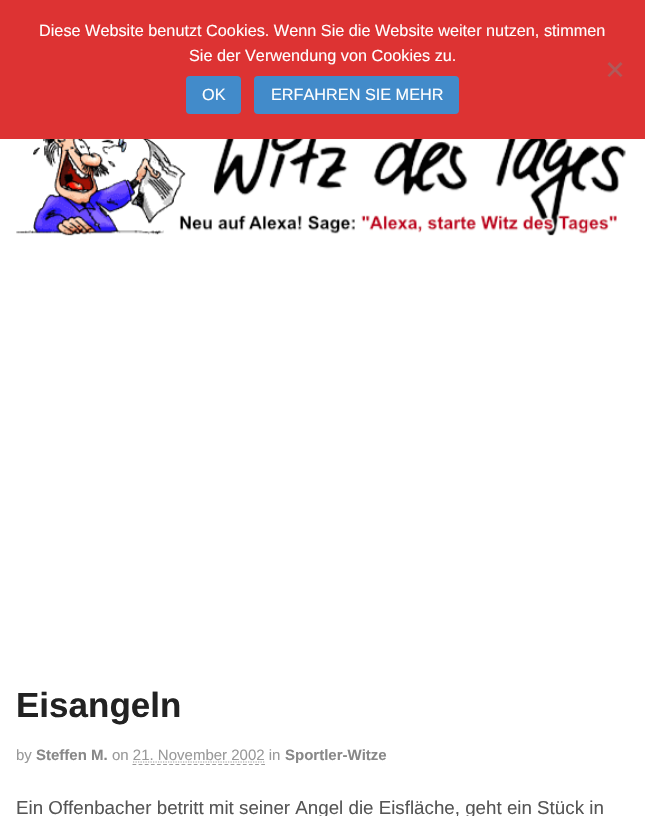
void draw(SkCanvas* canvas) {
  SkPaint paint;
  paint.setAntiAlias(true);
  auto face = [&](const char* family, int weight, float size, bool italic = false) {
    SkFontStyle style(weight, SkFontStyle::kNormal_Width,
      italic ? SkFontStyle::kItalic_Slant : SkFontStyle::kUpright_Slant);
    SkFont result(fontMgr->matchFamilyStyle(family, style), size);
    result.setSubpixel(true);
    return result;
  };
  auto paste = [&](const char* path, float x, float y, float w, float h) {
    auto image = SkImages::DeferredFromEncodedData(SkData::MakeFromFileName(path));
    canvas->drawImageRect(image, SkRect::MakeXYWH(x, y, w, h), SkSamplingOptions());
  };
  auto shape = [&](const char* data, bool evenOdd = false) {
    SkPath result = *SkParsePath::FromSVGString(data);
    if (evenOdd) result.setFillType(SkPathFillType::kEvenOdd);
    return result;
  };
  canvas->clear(0xffffffff);
  paint.setColor(0xffdd3333);
  canvas->drawRect(SkRect::MakeXYWH(0, 0, 645, 139), paint);
  paint.setColor(0xffaf5a5a);
  canvas->drawPath(shape("M620.5 62L622.5 64L609.5 77L607.5 75.5Z"), paint);
  canvas->drawPath(shape("M607.5 64L609.5 62L622.5 75.5L620.5 77Z"), paint);
  paint.setColor(0xff428bca);
  canvas->drawRoundRect(SkRect::MakeXYWH(186, 76, 55, 38), 4, 4, paint);
  canvas->drawRoundRect(SkRect::MakeXYWH(254, 76, 205, 38), 4, 4, paint);
  paste("img/1.png", 16, 139, 610, 97);
  paint.setStroke(true);
  paint.setStrokeWidth(1.2f);
  paint.setColor(0xff999999);
  paint.setPathEffect(SkDashPathEffect::Make({{1.25f, 1.25f}}, 0));
  canvas->drawPath(shape("M133 762H265"), paint);
  paint.setPathEffect(nullptr);
  paint.setPathEffect(SkDashPathEffect::Make({{3.75f, 2.38f}}, 0));
  canvas->drawPath(shape("M132.5 764.5H265"), paint);
  paint.setPathEffect(nullptr);
  auto f0 = face("Liberation Sans", 400, 16.25f);
  paint.setStroke(false);
  paint.setColor(0xffffffff);
  {
    const struct { const char* s; float x, y; } items[] = {
      {"Diese Website benutzt Cookies. Wenn Sie die Website weiter nutzen, stimmen", 39, 36},
      {"Sie der Verwendung von Cookies zu.", 189, 61},
      {"OK", 202, 100},
      {"ERFAHREN SIE MEHR", 271, 100},
    };
    for (auto [s, x, y] : items) {
      canvas->drawString(s, x, y, f0, paint);
    }
  }
  auto f1 = face("Liberation Sans", 700, 35);
  paint.setColor(0xff222222);
  canvas->drawString("Eisangeln", 16, 717, f1, paint);
  auto f2 = face("Liberation Sans", 400, 15);
  paint.setColor(0xff999999);
  canvas->drawString("by", 16, 760, f2, paint);
  auto f3 = face("Liberation Sans", 700, 15);
  paint.setColor(0xff888888);
  canvas->drawString("Steffen M.", 36, 760, f3, paint);
  paint.setColor(0xff999999);
  canvas->drawString("on 21. November 2002 in", 112, 760, f2, paint);
  paint.setColor(0xff888888);
  canvas->drawString("Sportler-Witze", 285, 760, f3, paint);
  auto f4 = face("Liberation Sans", 400, 18.75f);
  paint.setColor(0xff555555);
  canvas->drawString("Ein Offenbacher betritt mit seiner Angel die Eisfläche, geht ein Stück in", 16, 814, f4, paint);
}
